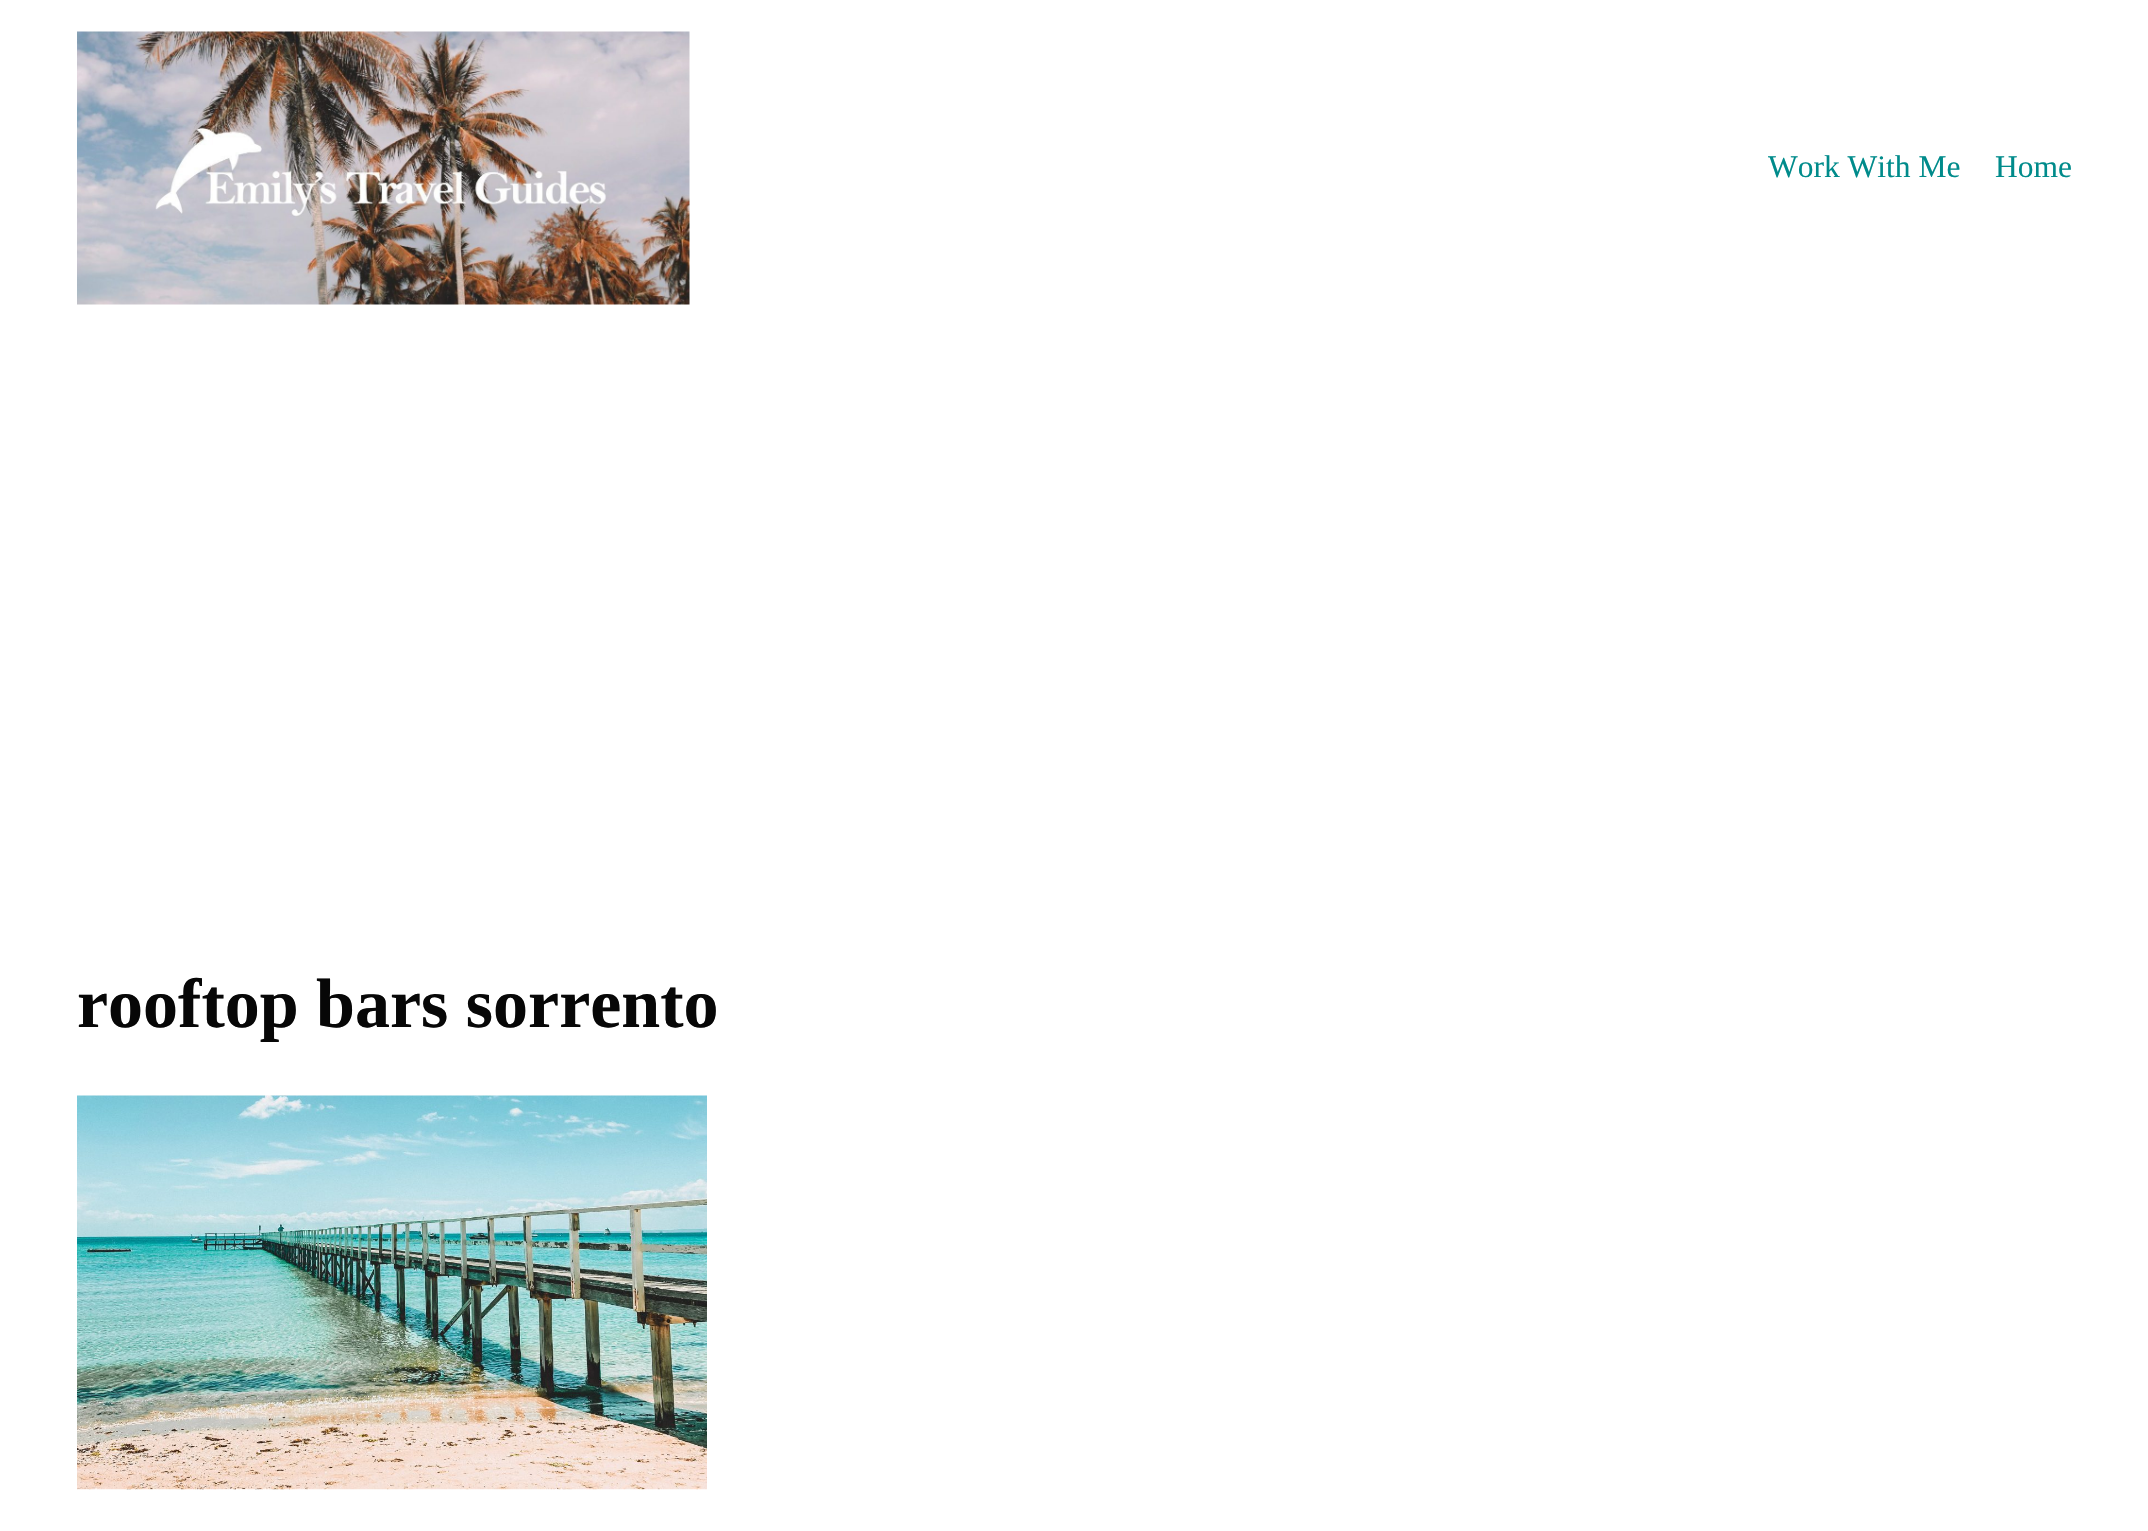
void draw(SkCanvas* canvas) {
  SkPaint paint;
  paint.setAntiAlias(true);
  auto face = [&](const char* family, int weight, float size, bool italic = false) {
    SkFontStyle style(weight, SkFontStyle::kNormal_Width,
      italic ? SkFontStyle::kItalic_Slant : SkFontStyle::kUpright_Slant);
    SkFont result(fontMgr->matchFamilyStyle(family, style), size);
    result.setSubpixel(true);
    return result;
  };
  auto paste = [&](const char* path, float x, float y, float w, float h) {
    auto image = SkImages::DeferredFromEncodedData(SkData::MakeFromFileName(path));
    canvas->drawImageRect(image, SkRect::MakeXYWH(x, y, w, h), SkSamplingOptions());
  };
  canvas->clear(0xffffffff);
  paste("img/1.png", 77, 31, 613, 274);
  paste("img/2.png", 77, 1095, 630, 395);
  auto f0 = face("Liberation Serif", 400, 31.5f);
  paint.setColor(0xff008b8b);
  canvas->drawString("Work With Me", 1768, 177, f0, paint);
  canvas->drawString("Home", 1995, 177, f0, paint);
  auto f1 = face("Liberation Serif", 700, 70);
  paint.setColor(0xff070707);
  canvas->drawString("rooftop bars sorrento", 77, 1027, f1, paint);
}
